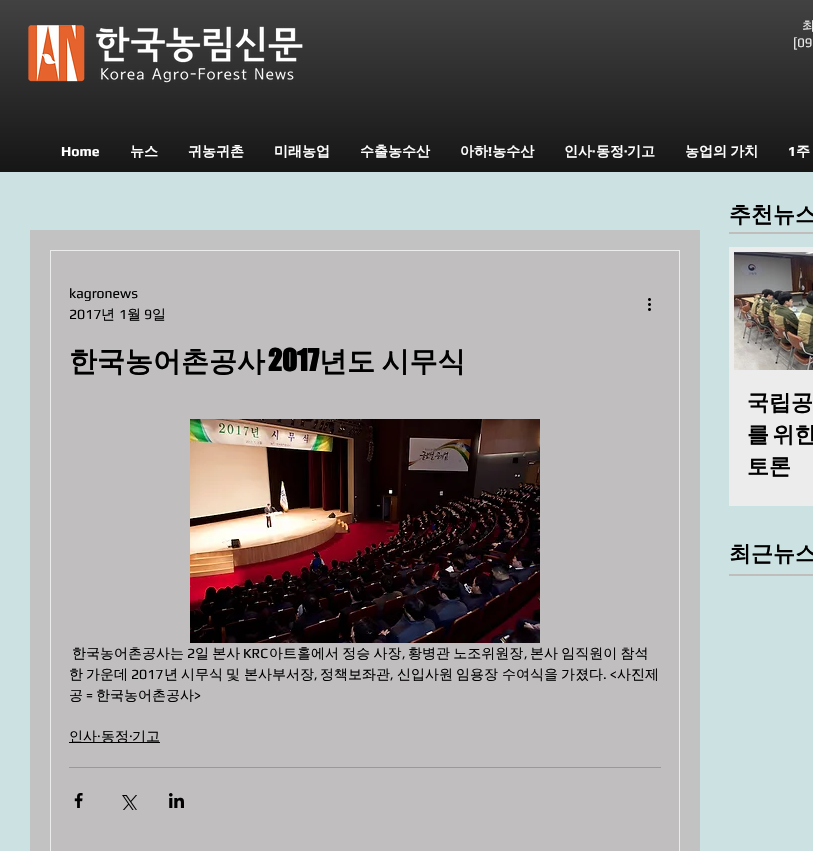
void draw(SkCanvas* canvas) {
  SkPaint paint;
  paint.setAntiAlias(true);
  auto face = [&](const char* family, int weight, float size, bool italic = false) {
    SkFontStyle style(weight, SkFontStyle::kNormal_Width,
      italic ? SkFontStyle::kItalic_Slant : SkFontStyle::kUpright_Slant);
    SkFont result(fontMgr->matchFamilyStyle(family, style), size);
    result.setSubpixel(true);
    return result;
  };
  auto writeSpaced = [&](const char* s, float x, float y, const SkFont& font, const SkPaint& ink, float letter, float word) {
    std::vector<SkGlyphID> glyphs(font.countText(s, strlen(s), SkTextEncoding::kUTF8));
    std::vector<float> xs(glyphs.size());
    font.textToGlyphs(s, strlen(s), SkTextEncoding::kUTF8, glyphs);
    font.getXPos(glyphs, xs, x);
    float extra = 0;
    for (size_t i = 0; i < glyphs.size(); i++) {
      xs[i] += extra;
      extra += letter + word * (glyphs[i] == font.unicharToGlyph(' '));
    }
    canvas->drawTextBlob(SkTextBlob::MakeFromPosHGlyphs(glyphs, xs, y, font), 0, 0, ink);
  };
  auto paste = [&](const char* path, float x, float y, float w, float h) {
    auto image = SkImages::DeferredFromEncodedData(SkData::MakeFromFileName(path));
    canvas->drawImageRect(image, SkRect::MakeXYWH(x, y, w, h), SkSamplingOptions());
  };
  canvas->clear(0xff000000);
  paste("img/1.png", 0, 0, 813, 172);
  paste("img/2.png", 28, 25, 275, 58);
  {
    const struct { float x, y, w, h; SkColor color; } items[] = {
      {0, 172, 813, 679, 0xffcce2e2},
      {729, 232, 84, 2, 0xffc0bdbd},
      {30, 230, 670, 621, 0xffc2c2c2},
    };
    for (auto [x, y, w, h, color] : items) {
      paint.setColor(color);
      canvas->drawRect(SkRect::MakeXYWH(x, y, w, h), paint);
    }
  }
  paint.setColor(0xffc0bebe);
  canvas->drawRect(SkRect::MakeXYWH(50.5f, 250.5f, 629, 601), paint);
  paint.setStroke(true);
  paint.setStrokeWidth(1);
  paint.setColor(0xffececec);
  canvas->drawRect(SkRect::MakeXYWH(50.5f, 250.5f, 629, 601), paint);
  paste("img/3.png", 648, 298, 3, 13);
  paste("img/4.png", 190, 419, 350, 224);
  paint.setStroke(false);
  paint.setColor(0xff000000);
  canvas->drawRect(SkRect::MakeXYWH(69, 742, 91, 1), paint);
  paint.setColor(0xff9a9898);
  canvas->drawRect(SkRect::MakeXYWH(69, 767, 592, 1), paint);
  paste("img/5.png", 74, 793, 9, 15);
  paste("img/6.png", 122, 795, 15, 15);
  paste("img/7.png", 169, 793, 15, 15);
  paint.setColor(0xffececec);
  canvas->drawRect(SkRect::MakeXYWH(729, 247, 84, 259), paint);
  paste("img/8.png", 734, 252, 79, 118);
  paint.setColor(0xffc0bdbd);
  canvas->drawRect(SkRect::MakeXYWH(729, 574, 84, 2), paint);
  auto f0 = face("WenQuanYi Zen Hei", 500, 13);
  paint.setColor(0xffececec);
  canvas->drawString("최", 802, 30, f0, paint);
  auto f1 = face("Play", 400, 13);
  canvas->drawString("[09", 793, 47, f1, paint);
  auto f2 = face("Play", 700, 14);
  paint.setColor(0xffffffff);
  canvas->drawString("Home", 61, 156, f2, paint);
  auto f3 = face("WenQuanYi Zen Hei", 700, 14);
  {
    const struct { const char* s; float x, y; } items[] = {
      {"뉴스", 130, 156},
      {"귀농귀촌", 188, 156},
      {"미래농업", 274, 156},
      {"수출농수산", 360, 156},
      {"아하 농수산", 460, 156},
    };
    for (auto [s, x, y] : items) {
      canvas->drawString(s, x, y, f3, paint);
    }
  }
  canvas->drawString("!", 488, 156, f2, paint);
  canvas->drawString("인사", 564, 156, f3, paint);
  canvas->drawString("·", 592, 156, f2, paint);
  canvas->drawString("동정", 596, 156, f3, paint);
  canvas->drawString("·", 624, 156, f2, paint);
  canvas->drawString("기고", 627, 156, f3, paint);
  writeSpaced("농업의 가치", 685, 156, f3, paint, 0, -1);
  canvas->drawString("1", 788, 156, f2, paint);
  canvas->drawString("주", 796, 156, f3, paint);
  auto f4 = face("WenQuanYi Zen Hei", 700, 22);
  paint.setColor(0xff000000);
  canvas->drawString("추천뉴스", 729, 222, f4, paint);
  auto f5 = face("Play", 400, 14);
  canvas->drawString("kagronews", 69, 298, f5, paint);
  canvas->drawString("2017", 69, 319, f5, paint);
  auto f6 = face("WenQuanYi Zen Hei", 500, 14);
  canvas->drawString("년", 101, 319, f6, paint);
  canvas->drawString("1", 119, 319, f5, paint);
  canvas->drawString("월", 127, 319, f6, paint);
  canvas->drawString("9", 144, 319, f5, paint);
  canvas->drawString("일", 152, 319, f6, paint);
  auto f7 = face("WenQuanYi Zen Hei", 700, 28);
  canvas->drawString("한국농어촌공사", 69, 371, f7, paint);
  auto f8 = face("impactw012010", 700, 28);
  canvas->drawString("2017", 268, 371, f8, paint);
  writeSpaced("년도 시무식", 319, 371, f7, paint, 0, -2);
  canvas->drawString("한국농어촌공사는", 72, 658, f6, paint);
  canvas->drawString("2", 187, 658, f5, paint);
  writeSpaced("일 본사", 195, 658, f6, paint, 0, -1);
  canvas->drawString("KRC", 243, 658, f5, paint);
  writeSpaced("아트홀에서 정승 사장", 269, 658, f6, paint, 0, -1);
  canvas->drawString(",", 402, 658, f5, paint);
  writeSpaced("황병관 노조위원장", 408, 658, f6, paint, 0, -1);
  canvas->drawString(",", 524, 658, f5, paint);
  writeSpaced("본사 임직원이 참석", 530, 658, f6, paint, 0, -1);
  canvas->drawString("한", 69, 679, f6, paint);
  canvas->drawString("가운데", 86, 679, f6, paint);
  canvas->drawString("2017", 131, 679, f5, paint);
  {
    const struct { const char* s; float x, y; } items[] = {
      {"년", 164, 679},
      {"시무식", 181, 679},
      {"및", 226, 679},
      {"본사부서장", 244, 679},
    };
    for (auto [s, x, y] : items) {
      canvas->drawString(s, x, y, f6, paint);
    }
  }
  canvas->drawString(",", 314, 679, f5, paint);
  canvas->drawString("정책보좌관", 320, 679, f6, paint);
  canvas->drawString(",", 390, 679, f5, paint);
  {
    const struct { const char* s; float x, y; } items[] = {
      {"신입사원", 397, 679},
      {"임용장", 456, 679},
      {"수여식을", 502, 679},
      {"가졌다", 561, 679},
    };
    for (auto [s, x, y] : items) {
      canvas->drawString(s, x, y, f6, paint);
    }
  }
  canvas->drawString(". <", 603, 679, f5, paint);
  canvas->drawString("사진제", 617, 679, f6, paint);
  canvas->drawString("공", 69, 700, f6, paint);
  canvas->drawString("=", 86, 700, f5, paint);
  canvas->drawString("한국농어촌공사", 96, 700, f6, paint);
  canvas->drawString(">", 194, 700, f5, paint);
  canvas->drawString("인사", 69, 741, f6, paint);
  canvas->drawString("·", 97, 741, f5, paint);
  canvas->drawString("동정", 101, 741, f6, paint);
  canvas->drawString("·", 129, 741, f5, paint);
  canvas->drawString("기고", 132, 741, f6, paint);
  writeSpaced("국립공", 747, 410, f4, paint, 0, -3);
  writeSpaced("를 위한", 747, 442, f4, paint, 0, -3);
  canvas->drawString("토론", 747, 474, f4, paint);
  canvas->drawString("최근뉴스", 729, 561, f4, paint);
}
